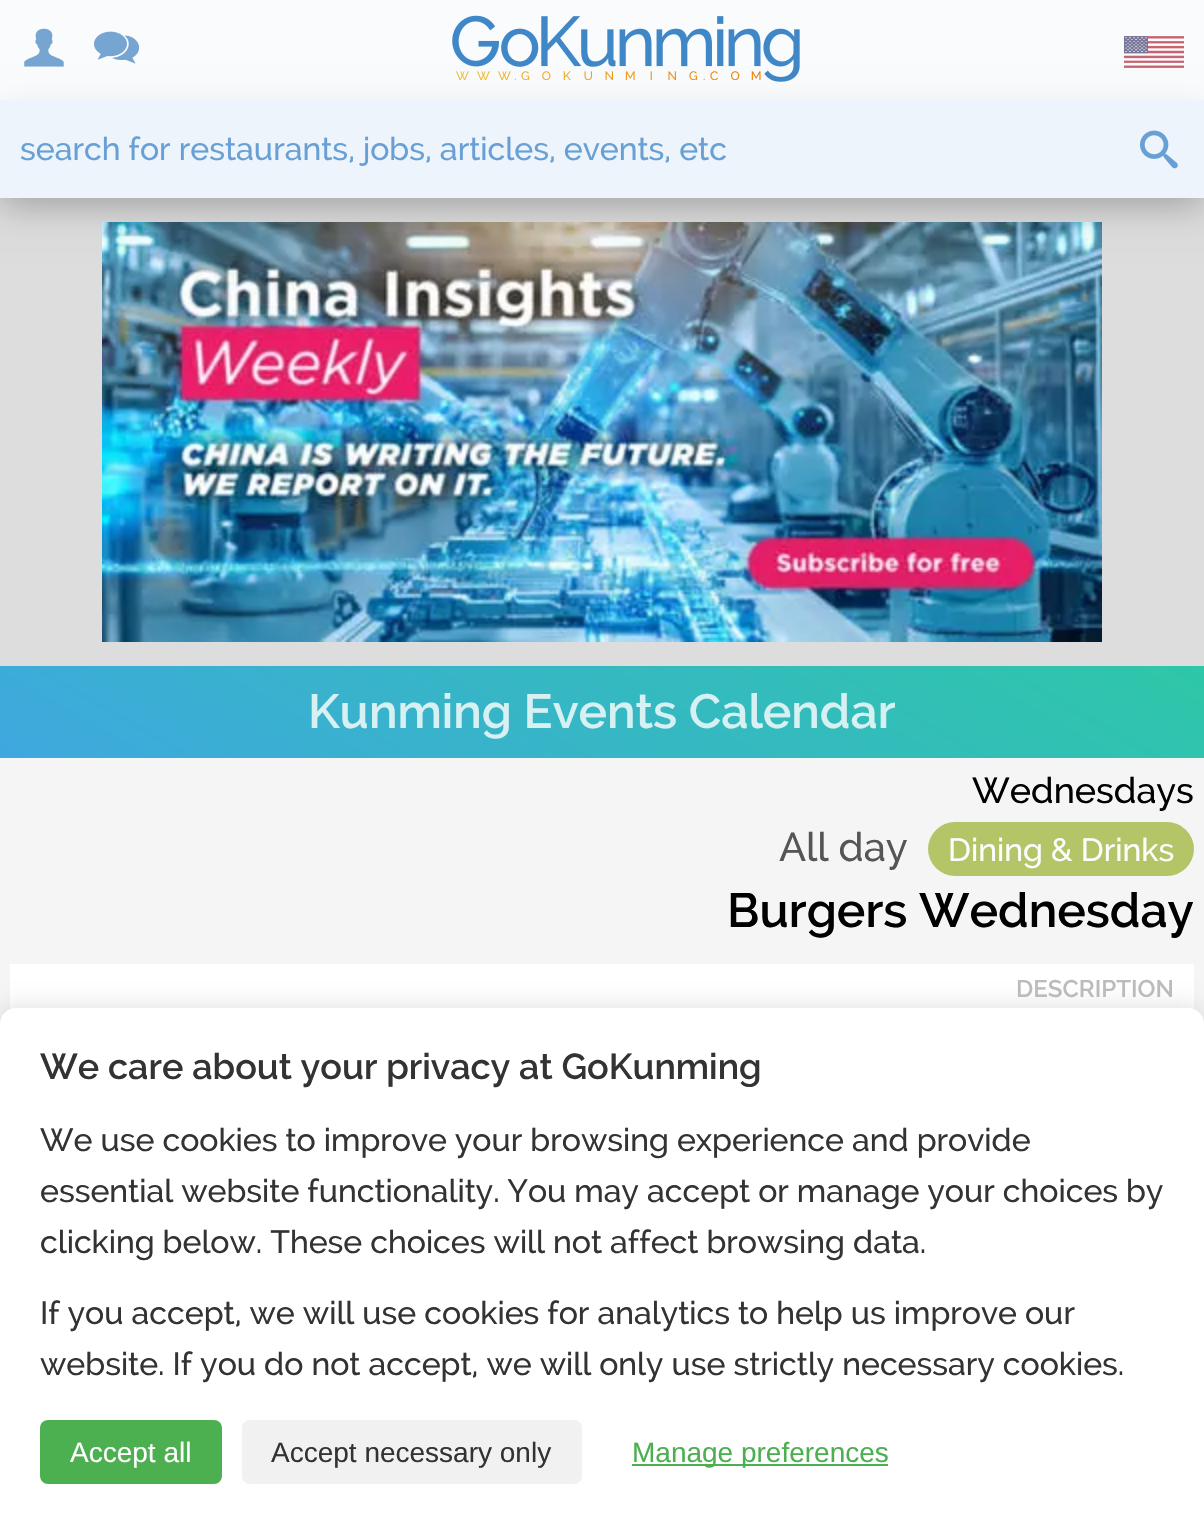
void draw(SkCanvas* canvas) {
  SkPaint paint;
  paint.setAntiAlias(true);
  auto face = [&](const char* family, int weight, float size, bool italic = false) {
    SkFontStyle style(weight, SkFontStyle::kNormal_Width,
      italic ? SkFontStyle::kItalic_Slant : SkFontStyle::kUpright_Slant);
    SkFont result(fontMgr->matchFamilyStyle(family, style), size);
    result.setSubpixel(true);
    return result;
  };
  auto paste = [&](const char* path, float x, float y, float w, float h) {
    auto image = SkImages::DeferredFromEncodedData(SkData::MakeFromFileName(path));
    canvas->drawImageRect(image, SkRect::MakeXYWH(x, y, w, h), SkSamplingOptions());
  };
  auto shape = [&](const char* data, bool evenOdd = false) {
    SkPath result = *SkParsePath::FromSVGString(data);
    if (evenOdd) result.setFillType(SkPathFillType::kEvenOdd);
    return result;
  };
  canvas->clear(0xffdddddd);
  paste("img/6.png", 102, 222, 1000, 420);
  paint.setColor(0x33000000);
  paint.setMaskFilter(SkMaskFilter::MakeBlur(kNormal_SkBlurStyle, 20));
  canvas->drawRect(SkRect::MakeXYWH(0, 4, 1204, 198), paint);
  paint.setMaskFilter(nullptr);
  paint.setColor(0xfffafbfd);
  canvas->drawRect(SkRect::MakeXYWH(0, 0, 1204, 100), paint);
  paste("img/3.png", 452, 15, 348, 67);
  paint.setColor(0x1a000000);
  paint.setMaskFilter(SkMaskFilter::MakeBlur(kNormal_SkBlurStyle, 15));
  canvas->drawRect(SkRect::MakeXYWH(0, 110, 1204, 98), paint);
  paint.setMaskFilter(nullptr);
  paste("img/1.png", 24, 28, 40, 39);
  paste("img/2.png", 94, 31, 46, 33);
  paste("img/4.png", 1124, 36, 60, 32);
  paint.setColor(0xffedf4fc);
  canvas->drawRect(SkRect::MakeXYWH(0, 100, 1204, 98), paint);
  paste("img/5.png", 1140, 130, 38, 39);
  paint.setColor(0xfff5f5f5);
  canvas->drawRect(SkRect::MakeXYWH(0, 758, 1204, 266), paint);
  {
    const SkColor colors[] = {0xff3ea8df, 0xff2ec7a8};
    const float stops[] = {0, 1};
    const SkPoint ends[] = {{432, 1007}, {772, 417}};
    paint.setShader(SkGradientShader::MakeLinear(ends, colors, stops, 2, SkTileMode::kClamp));
    paint.setAlpha(255);
  }
  canvas->drawRect(SkRect::MakeXYWH(0, 666, 1204, 92), paint);
  paint.setShader(nullptr);
  paint.setColor(0xffb4c567);
  canvas->drawRoundRect(SkRect::MakeXYWH(928, 822, 266, 54), 27, 27, paint);
  paint.setColor(0xffffffff);
  canvas->drawRect(SkRect::MakeXYWH(10, 964, 1184, 46), paint);
  paint.setColor(0x1a000000);
  paint.setMaskFilter(SkMaskFilter::MakeBlur(kNormal_SkBlurStyle, 10));
  canvas->drawRoundRect(SkRect::MakeXYWH(0, 1004, 1204, 516), 16, 16, paint);
  paint.setMaskFilter(nullptr);
  paint.setColor(0xffffffff);
  canvas->drawPath(shape("M16 1008H1188C1197 1008 1204 1015 1204 1024V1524H0V1024C0 1015 7 1008 16 1008Z"), paint);
  paint.setColor(0xff4caf50);
  canvas->drawRoundRect(SkRect::MakeXYWH(40, 1420, 182, 64), 8, 8, paint);
  paint.setColor(0xfff1f1f1);
  canvas->drawRoundRect(SkRect::MakeXYWH(242, 1420, 340, 64), 8, 8, paint);
  paint.setColor(0xff4caf50);
  canvas->drawRect(SkRect::MakeXYWH(632, 1464, 256, 2), paint);
  auto f0 = face("Raleway", 500, 32);
  paint.setColor(0xff68a0d5);
  canvas->drawString("search for restaurants, jobs, articles, events, etc", 20, 160, f0, paint);
  auto f1 = face("Raleway", 600, 48);
  paint.setColor(0xffd7f1f3);
  canvas->drawString("Kunming Events Calendar", 308, 728, f1, paint);
  auto f2 = face("Raleway", 500, 36);
  paint.setColor(0xff000000);
  canvas->drawString("Wednesdays", 972, 803, f2, paint);
  auto f3 = face("Raleway", 500, 40);
  paint.setColor(0xff565555);
  canvas->drawString("All day", 779, 861, f3, paint);
  paint.setColor(0xfffdfdfd);
  canvas->drawString("Dining & Drinks", 948, 861, f0, paint);
  paint.setColor(0xff000000);
  canvas->drawString("Burgers Wednesday", 727, 927, f1, paint);
  auto f4 = face("Raleway", 600, 24);
  paint.setColor(0xffbbbbbb);
  canvas->drawString("DESCRIPTION", 1016, 997, f4, paint);
  auto f5 = face("Raleway", 600, 36);
  paint.setColor(0xff333333);
  canvas->drawString("We care about your privacy at GoKunming", 40, 1079, f5, paint);
  {
    const struct { const char* s; float x, y; } items[] = {
      {"We use cookies to improve your browsing experience and provide", 40, 1151},
      {"essential website functionality. You may accept or manage your choices by", 40, 1202},
      {"clicking below. These choices will not affect browsing data.", 40, 1253},
      {"If you accept, we will use cookies for analytics to help us improve our", 40, 1324},
      {"website. If you do not accept, we will only use strictly necessary cookies.", 40, 1375},
    };
    for (auto [s, x, y] : items) {
      canvas->drawString(s, x, y, f0, paint);
    }
  }
  auto f6 = face("Liberation Sans", 400, 28);
  paint.setColor(0xfffdfdfd);
  canvas->drawString("Accept all", 70, 1462, f6, paint);
  paint.setColor(0xff333333);
  canvas->drawString("Accept necessary only", 271, 1462, f6, paint);
  paint.setColor(0xff4caf50);
  canvas->drawString("Manage preferences", 632, 1462, f6, paint);
}
